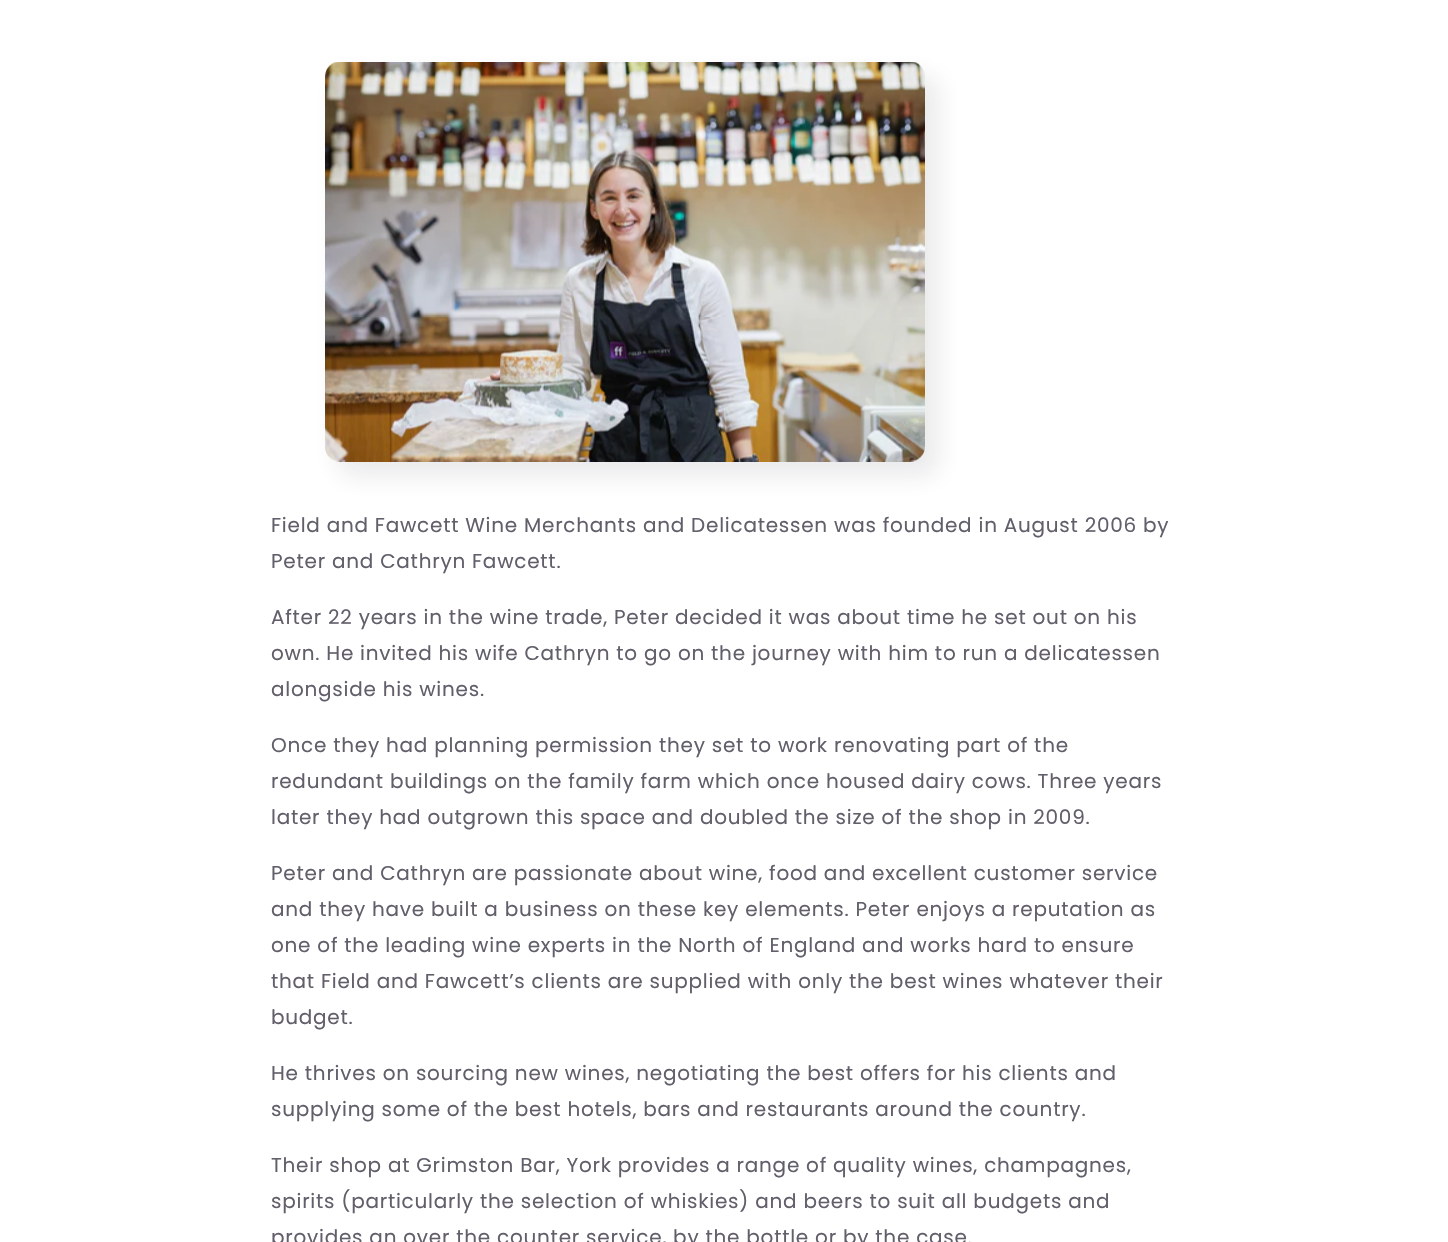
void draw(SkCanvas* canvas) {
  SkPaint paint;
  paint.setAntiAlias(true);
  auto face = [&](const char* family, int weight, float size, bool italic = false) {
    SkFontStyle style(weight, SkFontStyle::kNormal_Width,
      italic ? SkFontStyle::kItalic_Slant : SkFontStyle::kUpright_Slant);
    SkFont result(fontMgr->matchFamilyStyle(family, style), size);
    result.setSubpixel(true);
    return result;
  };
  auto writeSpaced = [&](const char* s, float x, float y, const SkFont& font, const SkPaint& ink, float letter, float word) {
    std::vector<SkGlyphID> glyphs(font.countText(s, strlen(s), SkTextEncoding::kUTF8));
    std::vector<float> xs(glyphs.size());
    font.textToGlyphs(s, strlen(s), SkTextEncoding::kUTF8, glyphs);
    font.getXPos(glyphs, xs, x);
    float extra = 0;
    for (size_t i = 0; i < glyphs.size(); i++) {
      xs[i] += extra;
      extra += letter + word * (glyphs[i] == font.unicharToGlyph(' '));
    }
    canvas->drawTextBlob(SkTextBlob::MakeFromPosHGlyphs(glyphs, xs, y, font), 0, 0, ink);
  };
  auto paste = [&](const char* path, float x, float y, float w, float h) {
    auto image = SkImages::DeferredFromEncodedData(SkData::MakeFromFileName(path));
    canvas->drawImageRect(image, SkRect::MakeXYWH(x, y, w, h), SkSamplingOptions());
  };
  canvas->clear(0xffffffff);
  paint.setColor(0x1a2e2a39);
  paint.setMaskFilter(SkMaskFilter::MakeBlur(kNormal_SkBlurStyle, 12.5f));
  canvas->drawRoundRect(SkRect::MakeXYWH(338, 76, 600, 400), 15, 15, paint);
  paint.setMaskFilter(nullptr);
  paste("img/1.png", 325, 62, 600, 400);
  auto f0 = face("Poppins", 400, 20);
  paint.setColor(0xff625f6b);
  {
    const struct { const char* s; float x, y; } items[] = {
      {"Field and Fawcett Wine Merchants and Delicatessen was founded in August 2006 by", 271, 532},
      {"Peter and Cathryn Fawcett.", 271, 568},
      {"After 22 years in the wine trade, Peter decided it was about time he set out on his", 271, 624},
      {"own. He invited his wife Cathryn to go on the journey with him to run a delicatessen", 271, 660},
      {"alongside his wines.", 271, 696},
      {"Once they had planning permission they set to work renovating part of the", 271, 752},
      {"redundant buildings on the family farm which once housed dairy cows. Three years", 271, 788},
      {"later they had outgrown this space and doubled the size of the shop in 2009.", 271, 824},
      {"Peter and Cathryn are passionate about wine, food and excellent customer service", 271, 880},
      {"and they have built a business on these key elements. Peter enjoys a reputation as", 271, 916},
      {"one of the leading wine experts in the North of England and works hard to ensure", 271, 952},
      {"that Field and Fawcett’s clients are supplied with only the best wines whatever their", 271, 988},
      {"budget.", 271, 1024},
      {"He thrives on sourcing new wines, negotiating the best offers for his clients and", 271, 1080},
      {"supplying some of the best hotels, bars and restaurants around the country.", 271, 1116},
      {"Their shop at Grimston Bar, York provides a range of quality wines, champagnes,", 271, 1172},
      {"spirits (particularly the selection of whiskies) and beers to suit all budgets and", 271, 1208},
      {"provides an over the counter service, by the bottle or by the case.", 271, 1244},
    };
    for (auto [s, x, y] : items) {
      writeSpaced(s, x, y, f0, paint, 0.75f, 0);
    }
  }
}
